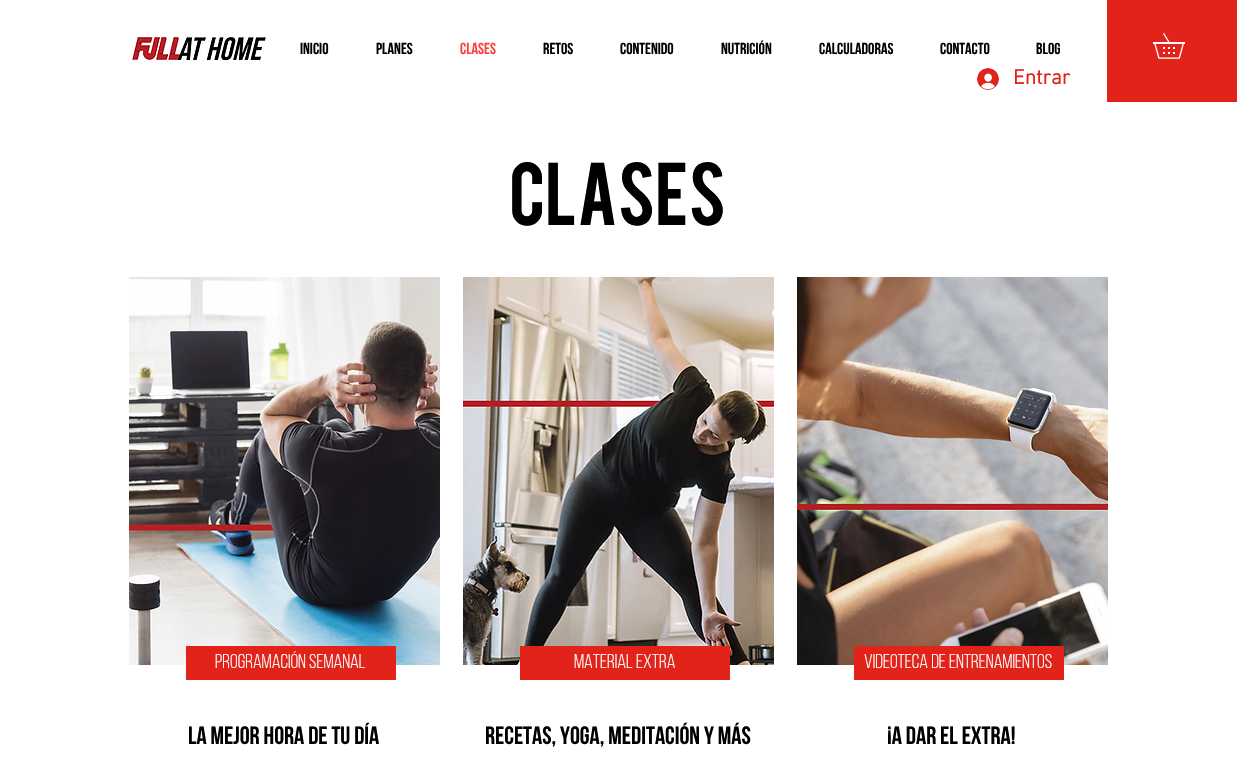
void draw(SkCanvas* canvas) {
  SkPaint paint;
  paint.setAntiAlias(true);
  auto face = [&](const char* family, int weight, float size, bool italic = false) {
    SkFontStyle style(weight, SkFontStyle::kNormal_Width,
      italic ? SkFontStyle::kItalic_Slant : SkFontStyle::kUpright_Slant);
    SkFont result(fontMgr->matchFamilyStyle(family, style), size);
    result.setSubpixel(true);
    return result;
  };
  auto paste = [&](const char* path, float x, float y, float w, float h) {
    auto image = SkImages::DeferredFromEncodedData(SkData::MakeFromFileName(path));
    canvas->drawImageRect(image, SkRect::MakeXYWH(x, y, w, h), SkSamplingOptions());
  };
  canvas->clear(0xffffffff);
  paste("img/1.png", 132, 37, 134, 24);
  paint.setColor(0xffe2231a);
  canvas->drawRect(SkRect::MakeXYWH(1107, 0, 130, 102), paint);
  paste("img/2.png", 1153, 33, 32, 26);
  paste("img/3.png", 977, 68, 22, 22);
  paste("img/4.png", 129, 277, 311, 388);
  canvas->drawRect(SkRect::MakeXYWH(186, 646, 210, 34), paint);
  paste("img/5.png", 463, 277, 311, 388);
  canvas->drawRect(SkRect::MakeXYWH(520, 646, 210, 34), paint);
  paste("img/6.png", 797, 277, 311, 388);
  canvas->drawRect(SkRect::MakeXYWH(854, 646, 210, 34), paint);
  auto f0 = face("Bebas Neue", 700, 16);
  paint.setColor(0xff000000);
  canvas->drawString("Inicio", 300, 54, f0, paint);
  canvas->drawString("Planes", 376, 54, f0, paint);
  paint.setColor(0xffff4040);
  canvas->drawString("Clases", 460, 54, f0, paint);
  paint.setColor(0xff000000);
  {
    const struct { const char* s; float x, y; } items[] = {
      {"RETOS", 543, 54},
      {"Contenido", 620, 54},
      {"Nutrición", 721, 54},
      {"Calculadoras", 819, 54},
      {"Contacto", 940, 54},
      {"Blog", 1036, 54},
    };
    for (auto [s, x, y] : items) {
      canvas->drawString(s, x, y, f0, paint);
    }
  }
  auto f1 = face("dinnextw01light", 700, 21);
  paint.setColor(0xffe2231a);
  canvas->drawString("Entrar", 1013, 84, f1, paint);
  auto f2 = face("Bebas", 400, 70);
  paint.setColor(0xff000000);
  canvas->drawString("Clases", 509, 225, f2, paint);
  auto f3 = face("Bebas Neue", 400, 20);
  paint.setColor(0xffffffff);
  canvas->drawString("Programación Semanal", 215, 668, f3, paint);
  auto f4 = face("Bebas Neue", 700, 25);
  paint.setColor(0xff000000);
  canvas->drawString("La mejor hora de tu día", 188, 744, f4, paint);
  paint.setColor(0xffffffff);
  canvas->drawString("Material Extra", 574, 668, f3, paint);
  paint.setColor(0xff000000);
  canvas->drawString("Recetas, yoga, meditación y más", 485, 744, f4, paint);
  paint.setColor(0xffffffff);
  canvas->drawString("Videoteca de Entrenamientos", 864, 668, f3, paint);
  paint.setColor(0xff000000);
  canvas->drawString("¡a dar el extra!", 887, 744, f4, paint);
}
